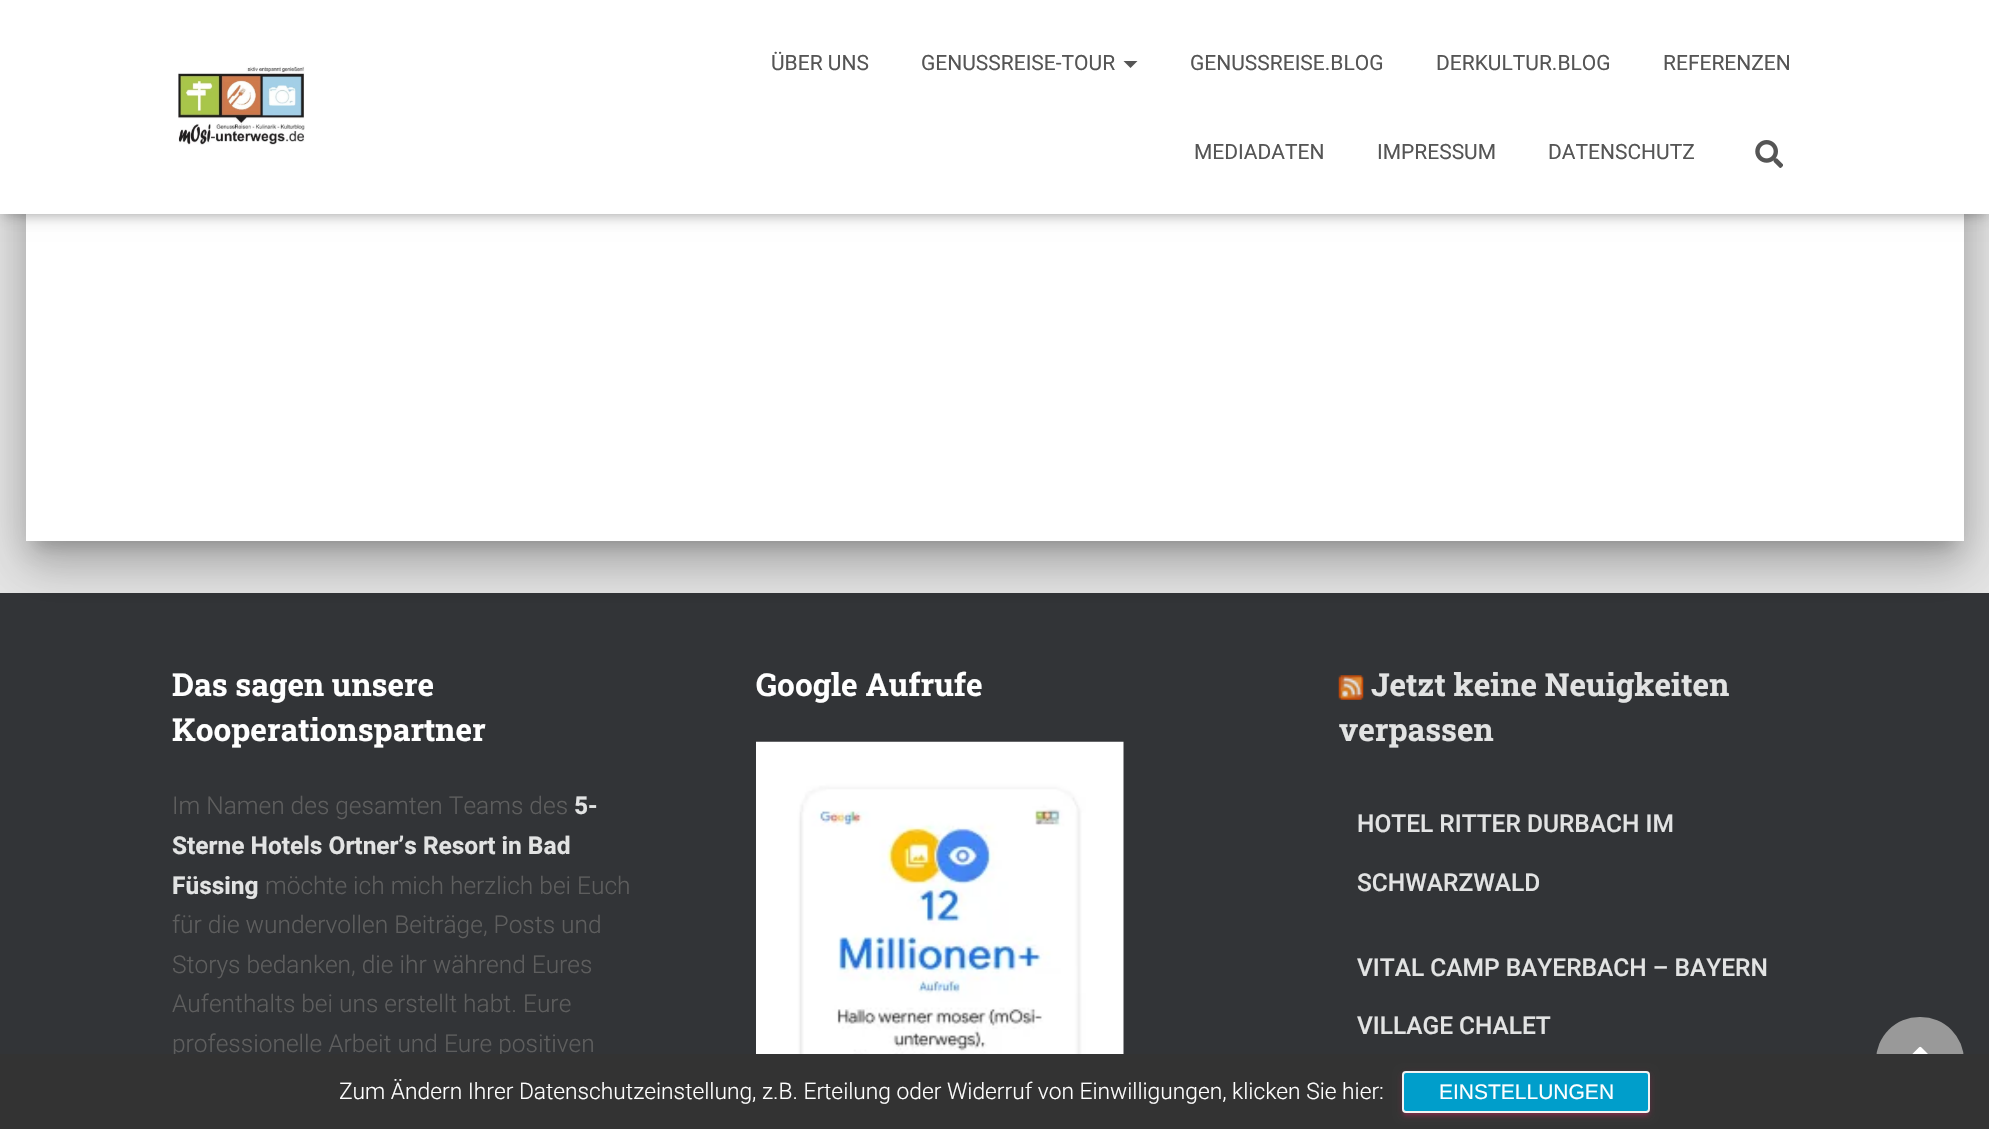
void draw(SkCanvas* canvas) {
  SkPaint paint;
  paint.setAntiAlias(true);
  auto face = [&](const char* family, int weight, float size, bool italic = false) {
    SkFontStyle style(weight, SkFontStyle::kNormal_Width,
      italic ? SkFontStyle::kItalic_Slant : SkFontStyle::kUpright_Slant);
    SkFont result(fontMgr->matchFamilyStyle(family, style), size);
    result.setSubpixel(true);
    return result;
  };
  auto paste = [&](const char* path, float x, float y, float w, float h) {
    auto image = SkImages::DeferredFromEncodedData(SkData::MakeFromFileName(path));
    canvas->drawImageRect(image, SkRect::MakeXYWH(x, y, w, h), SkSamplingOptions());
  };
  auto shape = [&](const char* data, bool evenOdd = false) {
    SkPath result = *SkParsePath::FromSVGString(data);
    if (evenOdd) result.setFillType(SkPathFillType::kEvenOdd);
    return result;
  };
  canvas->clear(0xffe5e5e5);
  paint.setColor(0x33000000);
  paint.setMaskFilter(SkMaskFilter::MakeBlur(kNormal_SkBlurStyle, 9));
  canvas->drawRoundRect(SkRect::MakeXYWH(35, -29, 1920, 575), 2, 2, paint);
  paint.setMaskFilter(nullptr);
  paint.setColor(0xff323437);
  canvas->drawRect(SkRect::MakeXYWH(0, 593, 1989, 461), paint);
  paint.setColor(0x1f000000);
  paint.setMaskFilter(SkMaskFilter::MakeBlur(kNormal_SkBlurStyle, 26));
  canvas->drawRoundRect(SkRect::MakeXYWH(18, -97, 1954, 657), 19, 19, paint);
  paint.setMaskFilter(nullptr);
  paint.setColor(0x24000000);
  paint.setMaskFilter(SkMaskFilter::MakeBlur(kNormal_SkBlurStyle, 21));
  canvas->drawRoundRect(SkRect::MakeXYWH(23, -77, 1944, 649), 14, 14, paint);
  paint.setMaskFilter(nullptr);
  paint.setColor(0xffffffff);
  canvas->drawRect(SkRect::MakeXYWH(26, 214, 1938, 327), paint);
  paint.setColor(0x1a000000);
  paint.setMaskFilter(SkMaskFilter::MakeBlur(kNormal_SkBlurStyle, 4.5f));
  canvas->drawRect(SkRect::MakeXYWH(4, 11, 1982, 206), paint);
  paint.setMaskFilter(nullptr);
  paint.setColor(0x1f000000);
  paint.setMaskFilter(SkMaskFilter::MakeBlur(kNormal_SkBlurStyle, 9));
  canvas->drawRect(SkRect::MakeXYWH(0, 2, 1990, 213), paint);
  paint.setMaskFilter(nullptr);
  paint.setColor(0x6b000000);
  paint.setMaskFilter(SkMaskFilter::MakeBlur(kNormal_SkBlurStyle, 9));
  canvas->drawRect(SkRect::MakeXYWH(11, 12, 1968, 193), paint);
  paint.setMaskFilter(nullptr);
  paint.setColor(0xffffffff);
  canvas->drawRect(SkRect::MakeXYWH(0, 0, 1989, 214), paint);
  paste("img/1.png", 178, 66, 127, 79);
  paint.setColor(0xff555555);
  canvas->drawPath(shape("M1123.5 61H1137.5L1130.5 68Z"), paint);
  paste("img/2.png", 1755, 140, 28, 28);
  paste("img/3.png", 756, 741, 368, 313);
  paste("img/4.png", 1338, 675, 26, 25);
  paint.setColor(0xff999999);
  canvas->drawRoundRect(SkRect::MakeXYWH(1876, 1017, 88, 87), 43.5f, 43.5f, paint);
  paste("img/5.png", 1912, 1046, 16, 8);
  auto f0 = face("Roboto", 400, 21);
  paint.setColor(0xff555555);
  {
    const struct { const char* s; float x, y; } items[] = {
      {"ÜBER UNS", 771, 70},
      {"GENUSSREISE-TOUR", 921, 70},
      {"GENUSSREISE.BLOG", 1190, 70},
      {"DERKULTUR.BLOG", 1436, 70},
      {"REFERENZEN", 1663, 70},
      {"MEDIADATEN", 1194, 159},
      {"IMPRESSUM", 1377, 159},
      {"DATENSCHUTZ", 1548, 159},
    };
    for (auto [s, x, y] : items) {
      canvas->drawString(s, x, y, f0, paint);
    }
  }
  auto f1 = face("Roboto Slab", 700, 31.5f);
  paint.setColor(0xffffffff);
  canvas->drawString("Das sagen unsere", 172, 696, f1, paint);
  canvas->drawString("Kooperationspartner", 172, 741, f1, paint);
  auto f2 = face("Roboto", 300, 24.5f);
  paint.setColor(0xff5e5e5e);
  canvas->drawString("Im Namen des gesamten Teams des", 172, 814, f2, paint);
  auto f3 = face("Roboto", 700, 24.5f);
  paint.setColor(0xffe2e3e3);
  {
    const struct { const char* s; float x, y; } items[] = {
      {"5-", 574, 814},
      {"Sterne Hotels Ortner’s Resort in Bad", 172, 854},
      {"Füssing", 172, 894},
    };
    for (auto [s, x, y] : items) {
      canvas->drawString(s, x, y, f3, paint);
    }
  }
  paint.setColor(0xff5e5e5e);
  {
    const struct { const char* s; float x, y; } items[] = {
      {"möchte ich mich herzlich bei Euch", 265, 894},
      {"für die wundervollen Beiträge, Posts und", 172, 933},
      {"Storys bedanken, die ihr während Eures", 172, 973},
      {"Aufenthalts bei uns erstellt habt. Eure", 172, 1012},
      {"professionelle Arbeit und Eure positiven", 172, 1052},
    };
    for (auto [s, x, y] : items) {
      canvas->drawString(s, x, y, f2, paint);
    }
  }
  paint.setColor(0xffffffff);
  canvas->drawString("Google Aufrufe", 756, 696, f1, paint);
  paint.setColor(0xffe2e3e3);
  canvas->drawString("Jetzt keine Neuigkeiten", 1371, 696, f1, paint);
  canvas->drawString("verpassen", 1339, 741, f1, paint);
  auto f4 = face("Roboto", 500, 24.5f);
  {
    const struct { const char* s; float x, y; } items[] = {
      {"HOTEL RITTER DURBACH IM", 1357, 832},
      {"SCHWARZWALD", 1357, 891},
      {"VITAL CAMP BAYERBACH – BAYERN", 1357, 976},
      {"VILLAGE CHALET", 1357, 1034},
    };
    for (auto [s, x, y] : items) {
      canvas->drawString(s, x, y, f4, paint);
    }
  }
  paint.setColor(0xff333333);
  canvas->drawRect(SkRect::MakeXYWH(0, 1054, 1989, 75), paint);
  auto f5 = face("Roboto", 300, 22.75f);
  paint.setColor(0xffffffff);
  canvas->drawString("Zum Ändern Ihrer Datenschutzeinstellung, z.B. Erteilung oder Widerruf von Einwilligungen, klicken Sie hier:", 339, 1099, f5, paint);
  paint.setColor(0x1fe91e63);
  paint.setMaskFilter(SkMaskFilter::MakeBlur(kNormal_SkBlurStyle, 4.5f));
  canvas->drawRoundRect(SkRect::MakeXYWH(1402, 1073, 248, 42), 4, 4, paint);
  paint.setMaskFilter(nullptr);
  paint.setColor(0x33e91e63);
  paint.setMaskFilter(SkMaskFilter::MakeBlur(kNormal_SkBlurStyle, 1));
  canvas->drawRect(SkRect::MakeXYWH(1405, 1080, 242, 35), paint);
  paint.setMaskFilter(nullptr);
  paint.setColor(0x24e91e63);
  paint.setMaskFilter(SkMaskFilter::MakeBlur(kNormal_SkBlurStyle, 2));
  canvas->drawRoundRect(SkRect::MakeXYWH(1402, 1075, 248, 42), 4, 4, paint);
  paint.setMaskFilter(nullptr);
  paint.setColor(0xff009ecb);
  canvas->drawRoundRect(SkRect::MakeXYWH(1403, 1072, 246, 40), 3, 3, paint);
  paint.setStroke(true);
  paint.setStrokeWidth(2);
  paint.setColor(0xfff3f3f3);
  canvas->drawRoundRect(SkRect::MakeXYWH(1403, 1072, 246, 40), 3, 3, paint);
  auto f6 = face("Liberation Sans", 400, 21);
  paint.setStroke(false);
  paint.setColor(0xffffffff);
  canvas->drawString("EINSTELLUNGEN", 1439, 1099, f6, paint);
}
